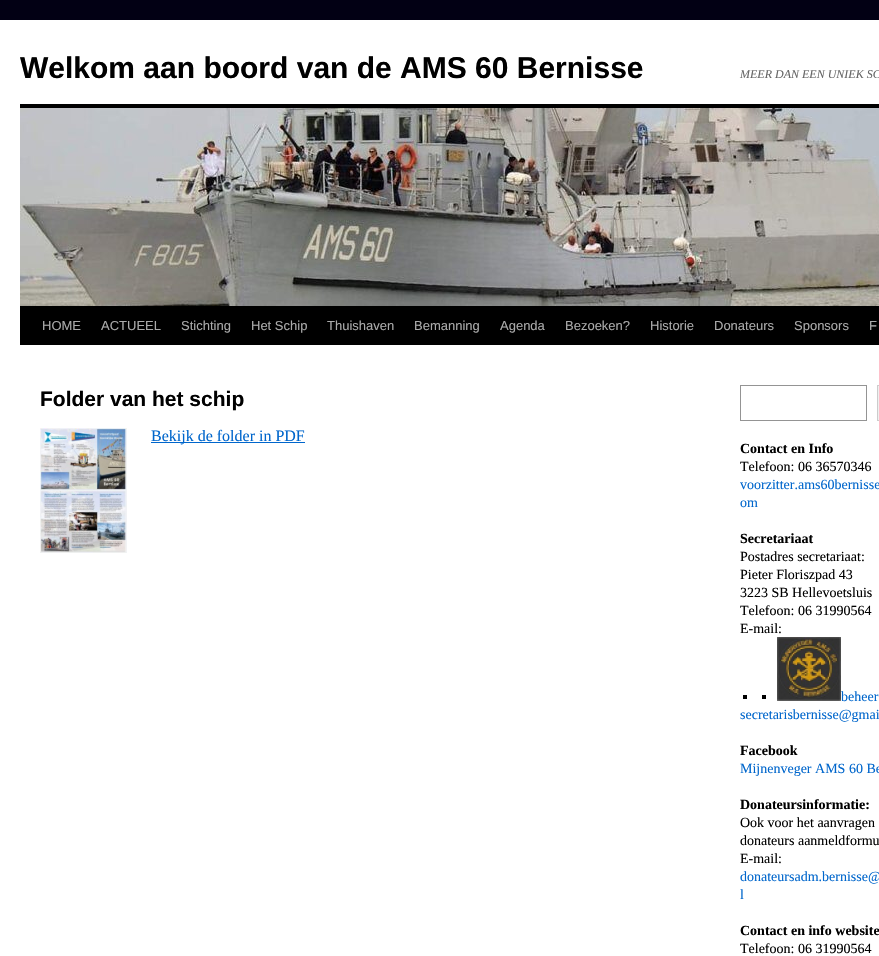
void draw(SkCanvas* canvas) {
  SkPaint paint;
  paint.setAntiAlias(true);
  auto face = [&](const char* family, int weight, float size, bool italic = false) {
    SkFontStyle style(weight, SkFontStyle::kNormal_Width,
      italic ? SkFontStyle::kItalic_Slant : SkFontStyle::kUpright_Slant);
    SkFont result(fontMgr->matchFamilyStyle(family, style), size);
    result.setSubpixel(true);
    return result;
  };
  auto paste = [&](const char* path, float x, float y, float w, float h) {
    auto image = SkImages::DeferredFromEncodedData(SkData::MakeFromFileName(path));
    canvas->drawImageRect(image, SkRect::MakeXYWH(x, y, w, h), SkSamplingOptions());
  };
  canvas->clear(0xff020014);
  {
    const struct { float x, y, w, h; SkColor color; } items[] = {
      {0, 20, 879, 936, 0xffffffff},
      {20, 104, 859, 4, 0xff000000},
      {20, 306, 859, 39, 0xff000000},
    };
    for (auto [x, y, w, h, color] : items) {
      paint.setColor(color);
      canvas->drawRect(SkRect::MakeXYWH(x, y, w, h), paint);
    }
  }
  paste("img/1.png", 20, 108, 859, 198);
  paste("img/2.png", 40, 428, 87, 125);
  paint.setColor(0xff0066cc);
  canvas->drawRect(SkRect::MakeXYWH(151, 442, 154, 1), paint);
  paint.setStroke(true);
  paint.setStrokeWidth(1);
  paint.setColor(0xff949494);
  canvas->drawRect(SkRect::MakeXYWH(740.5f, 385.5f, 126, 35), paint);
  paint.setStroke(false);
  paint.setColor(0xffefefef);
  canvas->drawRect(SkRect::MakeXYWH(877.5f, 385.5f, 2, 35), paint);
  paint.setStroke(true);
  paint.setColor(0xffcccccc);
  canvas->drawRect(SkRect::MakeXYWH(877.5f, 385.5f, 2, 35), paint);
  paint.setStroke(false);
  paint.setColor(0xff000000);
  canvas->drawRect(SkRect::MakeXYWH(743, 695, 4, 4), paint);
  canvas->drawRect(SkRect::MakeXYWH(762, 695, 4, 4), paint);
  paste("img/3.png", 777, 637, 64, 64);
  auto f0 = face("Liberation Sans", 700, 30);
  canvas->drawString("Welkom aan boord van de AMS 60 Bernisse", 20, 78, f0, paint);
  auto f1 = face("Liberation Serif", 400, 12, true);
  paint.setColor(0xff666666);
  canvas->drawString("MEER DAN EEN UNIEK SC", 740, 78, f1, paint);
  auto f2 = face("Liberation Sans", 400, 13);
  paint.setColor(0xffaaaaaa);
  {
    const struct { const char* s; float x, y; } items[] = {
      {"HOME", 42, 330},
      {"ACTUEEL", 101, 330},
      {"Stichting", 181, 330},
      {"Het Schip", 251, 330},
      {"Thuishaven", 327, 330},
      {"Bemanning", 414, 330},
      {"Agenda", 500, 330},
      {"Bezoeken?", 565, 330},
      {"Historie", 650, 330},
      {"Donateurs", 714, 330},
      {"Sponsors", 794, 330},
      {"F", 869, 330},
    };
    for (auto [s, x, y] : items) {
      canvas->drawString(s, x, y, f2, paint);
    }
  }
  auto f3 = face("Liberation Sans", 700, 21);
  paint.setColor(0xff000000);
  canvas->drawString("Folder van het schip", 40, 406, f3, paint);
  auto f4 = face("Liberation Serif", 400, 16);
  paint.setColor(0xff0066cc);
  canvas->drawString("Bekijk de folder in PDF", 151, 441, f4, paint);
  auto f5 = face("Liberation Serif", 700, 14);
  paint.setColor(0xff000000);
  canvas->drawString("Contact en Info", 740, 453, f5, paint);
  auto f6 = face("Liberation Serif", 400, 14);
  canvas->drawString("Telefoon: 06 36570346", 740, 471, f6, paint);
  paint.setColor(0xff0066cc);
  canvas->drawString("voorzitter.ams60bernisse", 740, 489, f6, paint);
  canvas->drawString("om", 740, 507, f6, paint);
  paint.setColor(0xff000000);
  canvas->drawString("Secretariaat", 740, 543, f5, paint);
  {
    const struct { const char* s; float x, y; } items[] = {
      {"Postadres secretariaat:", 740, 561},
      {"Pieter Floriszpad 43", 740, 579},
      {"3223 SB Hellevoetsluis", 740, 597},
      {"Telefoon: 06 31990564", 740, 615},
      {"E-mail:", 740, 633},
    };
    for (auto [s, x, y] : items) {
      canvas->drawString(s, x, y, f6, paint);
    }
  }
  paint.setColor(0xff0066cc);
  canvas->drawString("beheer", 841, 701, f6, paint);
  canvas->drawString("secretarisbernisse@gmai", 740, 719, f6, paint);
  paint.setColor(0xff000000);
  canvas->drawString("Facebook", 740, 755, f5, paint);
  paint.setColor(0xff0066cc);
  canvas->drawString("Mijnenveger AMS 60 Be", 740, 773, f6, paint);
  paint.setColor(0xff000000);
  canvas->drawString("Donateursinformatie:", 740, 809, f5, paint);
  {
    const struct { const char* s; float x, y; } items[] = {
      {"Ook voor het aanvragen", 740, 827},
      {"donateurs aanmeldformu", 740, 845},
      {"E-mail:", 740, 863},
    };
    for (auto [s, x, y] : items) {
      canvas->drawString(s, x, y, f6, paint);
    }
  }
  paint.setColor(0xff0066cc);
  canvas->drawString("donateursadm.bernisse@", 740, 881, f6, paint);
  canvas->drawString("l", 740, 899, f6, paint);
  paint.setColor(0xff000000);
  canvas->drawString("Contact en info website", 740, 935, f5, paint);
  canvas->drawString("Telefoon: 06 31990564", 740, 953, f6, paint);
}
